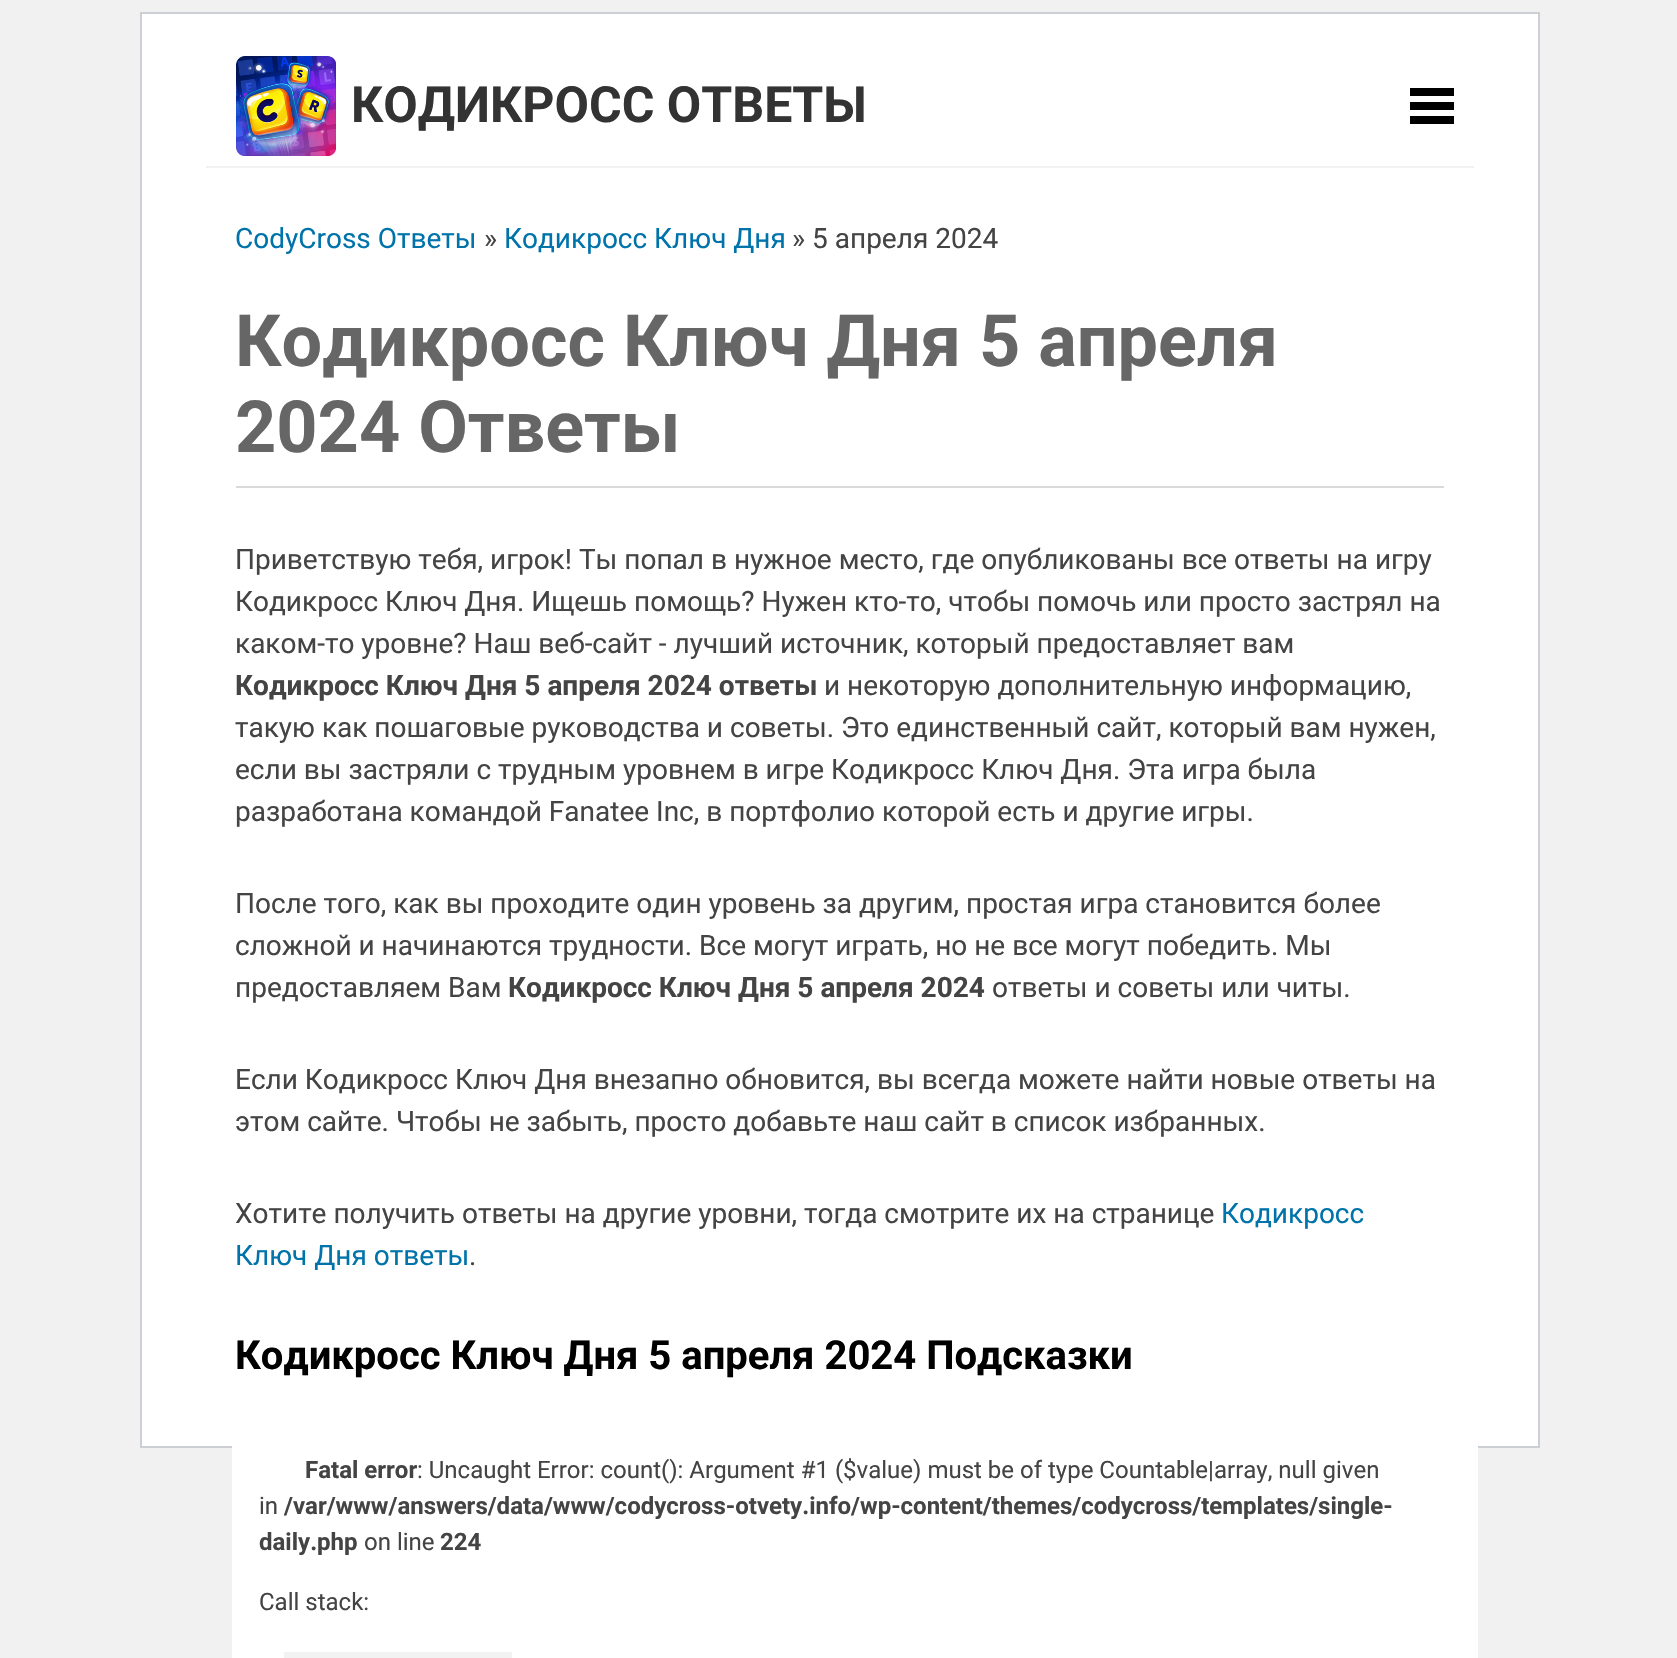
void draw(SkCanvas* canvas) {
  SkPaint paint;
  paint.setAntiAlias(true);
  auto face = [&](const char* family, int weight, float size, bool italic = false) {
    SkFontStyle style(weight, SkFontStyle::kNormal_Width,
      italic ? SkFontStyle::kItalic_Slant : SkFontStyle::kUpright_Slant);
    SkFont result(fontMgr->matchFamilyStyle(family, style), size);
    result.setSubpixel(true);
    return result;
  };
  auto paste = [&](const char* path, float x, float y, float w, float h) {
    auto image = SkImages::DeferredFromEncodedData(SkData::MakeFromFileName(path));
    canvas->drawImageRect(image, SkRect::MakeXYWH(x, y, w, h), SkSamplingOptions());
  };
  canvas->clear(0xfff1f1f1);
  paint.setColor(0xffffffff);
  canvas->drawRect(SkRect::MakeXYWH(141, 13, 1398, 1434), paint);
  paint.setStroke(true);
  paint.setStrokeWidth(2);
  paint.setColor(0xffccd0d4);
  canvas->drawRect(SkRect::MakeXYWH(141, 13, 1398, 1434), paint);
  paint.setStroke(false);
  paint.setColor(0xfff2f2f2);
  canvas->drawRect(SkRect::MakeXYWH(206, 166, 1268, 2), paint);
  paste("img/1.png", 236, 56, 100, 100);
  {
    const struct { float x, y, w, h; SkColor color; } items[] = {
      {1410, 88, 44, 8, 0xff000000},
      {1410, 116, 44, 8, 0xff000000},
      {1410, 102, 44, 8, 0xff000000},
      {236, 486, 1208, 2, 0xffdadada},
    };
    for (auto [x, y, w, h, color] : items) {
      paint.setColor(color);
      canvas->drawRect(SkRect::MakeXYWH(x, y, w, h), paint);
    }
  }
  paint.setStroke(true);
  paint.setStrokeWidth(4);
  paint.setColor(0xffffffff);
  canvas->drawRect(SkRect::MakeXYWH(234, 1412, 1242, 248), paint);
  paint.setStroke(false);
  canvas->drawRect(SkRect::MakeXYWH(236, 1446, 1238, 212), paint);
  paint.setColor(0xfff2f2f2);
  canvas->drawRect(SkRect::MakeXYWH(284, 1652, 228, 6), paint);
  auto f0 = face("Roboto", 700, 50);
  paint.setColor(0xff333333);
  canvas->drawString("КОДИКРОСС ОТВЕТЫ", 351, 122, f0, paint);
  auto f1 = face("Roboto", 400, 28);
  paint.setColor(0xff0073aa);
  canvas->drawString("CodyCross Ответы", 235, 248, f1, paint);
  paint.setColor(0xff444444);
  canvas->drawString("»", 484, 248, f1, paint);
  paint.setColor(0xff0073aa);
  canvas->drawString("Кодикросс Ключ Дня", 504, 248, f1, paint);
  paint.setColor(0xff444444);
  canvas->drawString("» 5 апреля 2024", 792, 248, f1, paint);
  auto f2 = face("Roboto", 700, 72);
  paint.setColor(0xff666666);
  canvas->drawString("Кодикросс Ключ Дня 5 апреля", 235, 366, f2, paint);
  canvas->drawString("2024 Ответы", 235, 452, f2, paint);
  paint.setColor(0xff444444);
  {
    const struct { const char* s; float x, y; } items[] = {
      {"Приветствую тебя, игрок! Ты попал в нужное место, где опубликованы все ответы на игру", 235, 569},
      {"Кодикросс Ключ Дня. Ищешь помощь? Нужен кто-то, чтобы помочь или просто застрял на", 235, 611},
      {"каком-то уровне? Наш веб-сайт - лучший источник, который предоставляет вам", 235, 653},
    };
    for (auto [s, x, y] : items) {
      canvas->drawString(s, x, y, f1, paint);
    }
  }
  auto f3 = face("Roboto", 700, 28);
  canvas->drawString("Кодикросс Ключ Дня 5 апреля 2024 ответы", 235, 695, f3, paint);
  {
    const struct { const char* s; float x, y; } items[] = {
      {"и некоторую дополнительную информацию,", 824, 695},
      {"такую как пошаговые руководства и советы. Это единственный сайт, который вам нужен,", 235, 737},
      {"если вы застряли с трудным уровнем в игре Кодикросс Ключ Дня. Эта игра была", 235, 779},
      {"разработана командой Fanatee Inc, в портфолио которой есть и другие игры.", 235, 821},
      {"После того, как вы проходите один уровень за другим, простая игра становится более", 235, 913},
      {"сложной и начинаются трудности. Все могут играть, но не все могут победить. Мы", 235, 955},
      {"предоставляем Вам", 235, 997},
    };
    for (auto [s, x, y] : items) {
      canvas->drawString(s, x, y, f1, paint);
    }
  }
  canvas->drawString("Кодикросс Ключ Дня 5 апреля 2024", 508, 997, f3, paint);
  {
    const struct { const char* s; float x, y; } items[] = {
      {"ответы и советы или читы.", 992, 997},
      {"Если Кодикросс Ключ Дня внезапно обновится, вы всегда можете найти новые ответы на", 235, 1089},
      {"этом сайте. Чтобы не забыть, просто добавьте наш сайт в список избранных.", 235, 1131},
      {"Хотите получить ответы на другие уровни, тогда смотрите их на странице", 235, 1223},
    };
    for (auto [s, x, y] : items) {
      canvas->drawString(s, x, y, f1, paint);
    }
  }
  paint.setColor(0xff0073aa);
  canvas->drawString("Кодикросс", 1221, 1223, f1, paint);
  canvas->drawString("Ключ Дня ответы", 235, 1265, f1, paint);
  paint.setColor(0xff444444);
  canvas->drawString(".", 469, 1265, f1, paint);
  auto f4 = face("Roboto", 700, 40);
  paint.setColor(0xff000000);
  canvas->drawString("Кодикросс Ключ Дня 5 апреля 2024 Подсказки", 235, 1369, f4, paint);
  auto f5 = face("Roboto", 700, 24);
  paint.setColor(0xff444444);
  canvas->drawString("Fatal error", 305, 1478, f5, paint);
  auto f6 = face("Roboto", 400, 24);
  canvas->drawString(": Uncaught Error: count(): Argument #1 ($value) must be of type Countable|array, null given", 417, 1478, f6, paint);
  canvas->drawString("in", 259, 1514, f6, paint);
  canvas->drawString("/var/www/answers/data/www/codycross-otvety.info/wp-content/themes/codycross/templates/single-", 284, 1514, f5, paint);
  canvas->drawString("daily.php", 259, 1550, f5, paint);
  canvas->drawString("on line", 364, 1550, f6, paint);
  canvas->drawString("224", 440, 1550, f5, paint);
  canvas->drawString("Call stack:", 259, 1610, f6, paint);
}
